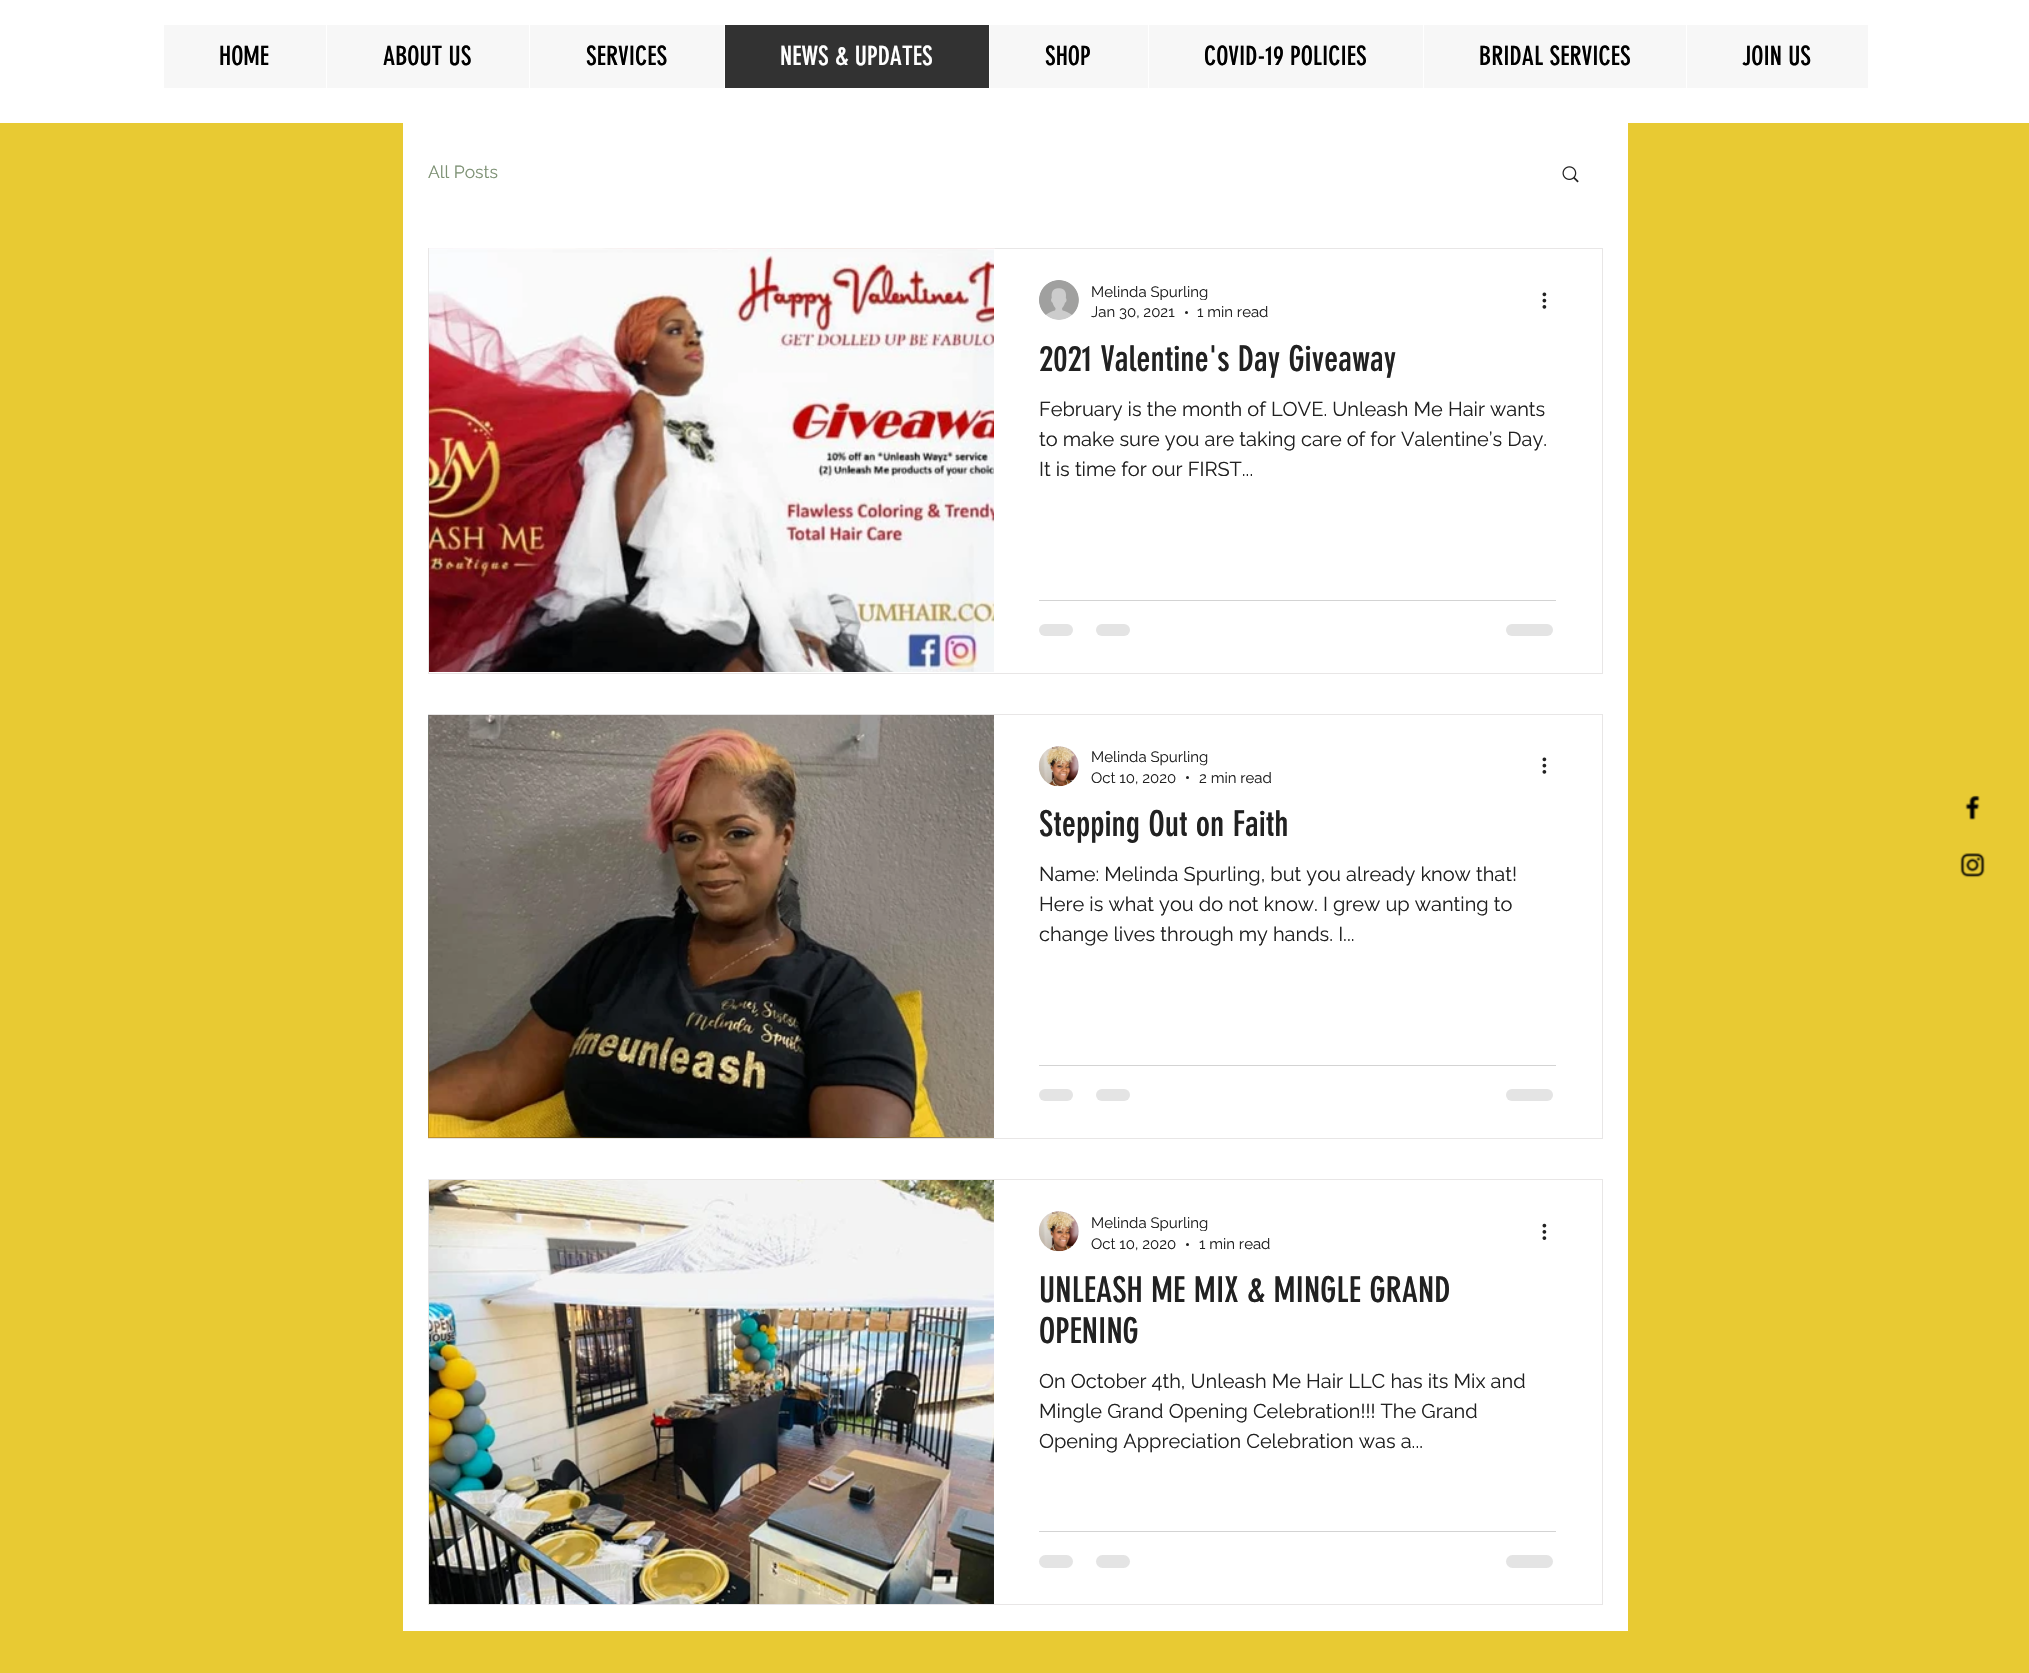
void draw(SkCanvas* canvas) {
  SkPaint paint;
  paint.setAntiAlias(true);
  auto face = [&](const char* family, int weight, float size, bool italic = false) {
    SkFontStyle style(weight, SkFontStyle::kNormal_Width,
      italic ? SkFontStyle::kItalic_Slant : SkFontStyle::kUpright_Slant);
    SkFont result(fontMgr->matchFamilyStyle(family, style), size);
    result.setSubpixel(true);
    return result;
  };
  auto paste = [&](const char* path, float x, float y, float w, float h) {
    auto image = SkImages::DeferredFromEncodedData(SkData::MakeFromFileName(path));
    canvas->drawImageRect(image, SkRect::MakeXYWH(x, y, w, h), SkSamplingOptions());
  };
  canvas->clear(0xffe8ca33);
  {
    const struct { float x, y, w, h; SkColor color; } items[] = {
      {0, 0, 2029, 123, 0xffffffff},
      {164, 25, 1704, 63, 0xfff7f7f7},
      {326, 25, 1, 63, 0xffffffff},
      {529, 25, 1, 63, 0xffffffff},
      {725, 25, 264, 63, 0xff323232},
      {724, 25, 1, 63, 0xffffffff},
      {989, 25, 1, 63, 0xffffffff},
      {1148, 25, 1, 63, 0xffffffff},
      {1423, 25, 1, 63, 0xffffffff},
      {1686, 25, 1, 63, 0xffffffff},
      {403, 123, 1225, 1508, 0xffffffff},
    };
    for (auto [x, y, w, h, color] : items) {
      paint.setColor(color);
      canvas->drawRect(SkRect::MakeXYWH(x, y, w, h), paint);
    }
  }
  paste("img/1.png", 1562, 166, 17, 17);
  paint.setStroke(true);
  paint.setStrokeWidth(1);
  paint.setColor(0xffe8e6e6);
  canvas->drawRect(SkRect::MakeXYWH(428.5f, 248.5f, 1174, 425), paint);
  paste("img/2.png", 429, 248, 566, 1);
  paste("img/3.png", 429, 249, 565, 423);
  paste("img/4.png", 1039, 280, 40, 40);
  paint.setStroke(false);
  paint.setColor(0xff212121);
  canvas->drawCircle(1186.5f, 312.5f, 1.5f, paint);
  paste("img/5.png", 1542, 292, 5, 17);
  paint.setColor(0xffd3d3d3);
  canvas->drawRect(SkRect::MakeXYWH(1039, 600, 517, 1), paint);
  paint.setColor(0xffe4e4e4);
  canvas->drawRoundRect(SkRect::MakeXYWH(1039, 624, 34, 12), 6, 6, paint);
  canvas->drawRoundRect(SkRect::MakeXYWH(1096, 624, 34, 12), 6, 6, paint);
  canvas->drawRoundRect(SkRect::MakeXYWH(1506, 624, 47, 12), 6, 6, paint);
  paint.setStroke(true);
  paint.setColor(0xffe8e6e6);
  canvas->drawRect(SkRect::MakeXYWH(428.5f, 714.5f, 1174, 424), paint);
  paste("img/6.png", 428, 715, 566, 423);
  paste("img/7.png", 429, 715, 565, 422);
  paste("img/8.png", 1038, 746, 41, 41);
  paint.setStroke(false);
  paint.setColor(0xff212121);
  canvas->drawCircle(1187.5f, 777.5f, 1.5f, paint);
  paste("img/5.png", 1542, 757, 5, 17);
  paint.setColor(0xffd3d3d3);
  canvas->drawRect(SkRect::MakeXYWH(1039, 1065, 517, 1), paint);
  paint.setColor(0xffe4e4e4);
  canvas->drawRoundRect(SkRect::MakeXYWH(1039, 1089, 34, 12), 6, 6, paint);
  canvas->drawRoundRect(SkRect::MakeXYWH(1096, 1089, 34, 12), 6, 6, paint);
  canvas->drawRoundRect(SkRect::MakeXYWH(1506, 1089, 47, 12), 6, 6, paint);
  paint.setStroke(true);
  paint.setColor(0xffe8e6e6);
  canvas->drawRect(SkRect::MakeXYWH(428.5f, 1179.5f, 1174, 425), paint);
  paste("img/9.png", 429, 1180, 565, 424);
  paste("img/10.png", 1038, 1211, 41, 41);
  paint.setStroke(false);
  paint.setColor(0xff212121);
  canvas->drawCircle(1187.5f, 1244.5f, 1.5f, paint);
  paste("img/11.png", 1542, 1223, 5, 17);
  paint.setColor(0xffd3d3d3);
  canvas->drawRect(SkRect::MakeXYWH(1039, 1531, 517, 1), paint);
  paint.setColor(0xffe4e4e4);
  canvas->drawRoundRect(SkRect::MakeXYWH(1039, 1555, 34, 13), 6.5f, 6.5f, paint);
  canvas->drawRoundRect(SkRect::MakeXYWH(1096, 1555, 34, 13), 6.5f, 6.5f, paint);
  canvas->drawRoundRect(SkRect::MakeXYWH(1506, 1555, 47, 13), 6.5f, 6.5f, paint);
  paste("img/12.png", 1965, 795, 15, 25);
  paste("img/13.png", 1960, 853, 25, 25);
  auto f0 = face("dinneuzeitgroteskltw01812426", 400, 26.25f);
  paint.setColor(0xff000000);
  {
    const struct { const char* s; float x, y; } items[] = {
      {"HOME", 219, 65},
      {"ABOUT US", 383, 65},
      {"SERVICES", 586, 65},
    };
    for (auto [s, x, y] : items) {
      canvas->drawString(s, x, y, f0, paint);
    }
  }
  paint.setColor(0xffffffff);
  canvas->drawString("NEWS & UPDATES", 780, 65, f0, paint);
  paint.setColor(0xff000000);
  {
    const struct { const char* s; float x, y; } items[] = {
      {"SHOP", 1045, 65},
      {"COVID-19 POLICIES", 1204, 65},
      {"BRIDAL SERVICES", 1479, 65},
      {"JOIN US", 1742, 65},
    };
    for (auto [s, x, y] : items) {
      canvas->drawString(s, x, y, f0, paint);
    }
  }
  auto f1 = face("Raleway", 400, 17.5f);
  paint.setColor(0xff7d9174);
  canvas->drawString("All Posts", 428, 178, f1, paint);
  canvas->save();
  canvas->clipRect(SkRect::MakeXYWH(1091, 283, 118, 17));
  auto f2 = face("Raleway", 400, 15);
  paint.setColor(0xff212121);
  canvas->drawString("Melinda Spurling", 1091, 297, f2, paint);
  canvas->restore();
  canvas->drawString("Jan 30, 2021", 1091, 317, f2, paint);
  canvas->drawString("1 min read", 1197, 317, f2, paint);
  auto f3 = face("dinneuzeitgroteskltw01812426", 400, 35);
  canvas->drawString("2021 Valentine's Day Giveaway", 1039, 371, f3, paint);
  auto f4 = face("Raleway", 400, 20);
  {
    const struct { const char* s; float x, y; } items[] = {
      {"February is the month of LOVE. Unleash Me Hair wants", 1039, 416},
      {"to make sure you are taking care of for Valentine’s Day.", 1039, 446},
      {"It is time for our FIRST...", 1039, 476},
    };
    for (auto [s, x, y] : items) {
      canvas->drawString(s, x, y, f4, paint);
    }
  }
  {
    const struct { const char* s; float x, y; } items[] = {
      {"Melinda Spurling", 1091, 762},
      {"Oct 10, 2020", 1091, 783},
      {"2 min read", 1199, 783},
    };
    for (auto [s, x, y] : items) {
      canvas->drawString(s, x, y, f2, paint);
    }
  }
  canvas->drawString("Stepping Out on Faith", 1039, 836, f3, paint);
  {
    const struct { const char* s; float x, y; } items[] = {
      {"Name: Melinda Spurling, but you already know that!", 1039, 881},
      {"Here is what you do not know. I grew up wanting to", 1039, 911},
      {"change lives through my hands. I...", 1039, 941},
    };
    for (auto [s, x, y] : items) {
      canvas->drawString(s, x, y, f4, paint);
    }
  }
  canvas->save();
  canvas->clipRect(SkRect::MakeXYWH(1091, 1214, 118, 17));
  canvas->drawString("Melinda Spurling", 1091, 1228, f2, paint);
  canvas->restore();
  canvas->drawString("Oct 10, 2020", 1091, 1249, f2, paint);
  canvas->drawString("1 min read", 1199, 1249, f2, paint);
  canvas->drawString("UNLEASH ME MIX & MINGLE GRAND", 1039, 1302, f3, paint);
  canvas->drawString("OPENING", 1039, 1343, f3, paint);
  {
    const struct { const char* s; float x, y; } items[] = {
      {"On October 4th, Unleash Me Hair LLC has its Mix and", 1039, 1388},
      {"Mingle Grand Opening Celebration!!! The Grand", 1039, 1418},
      {"Opening Appreciation Celebration was a...", 1039, 1448},
    };
    for (auto [s, x, y] : items) {
      canvas->drawString(s, x, y, f4, paint);
    }
  }
}
